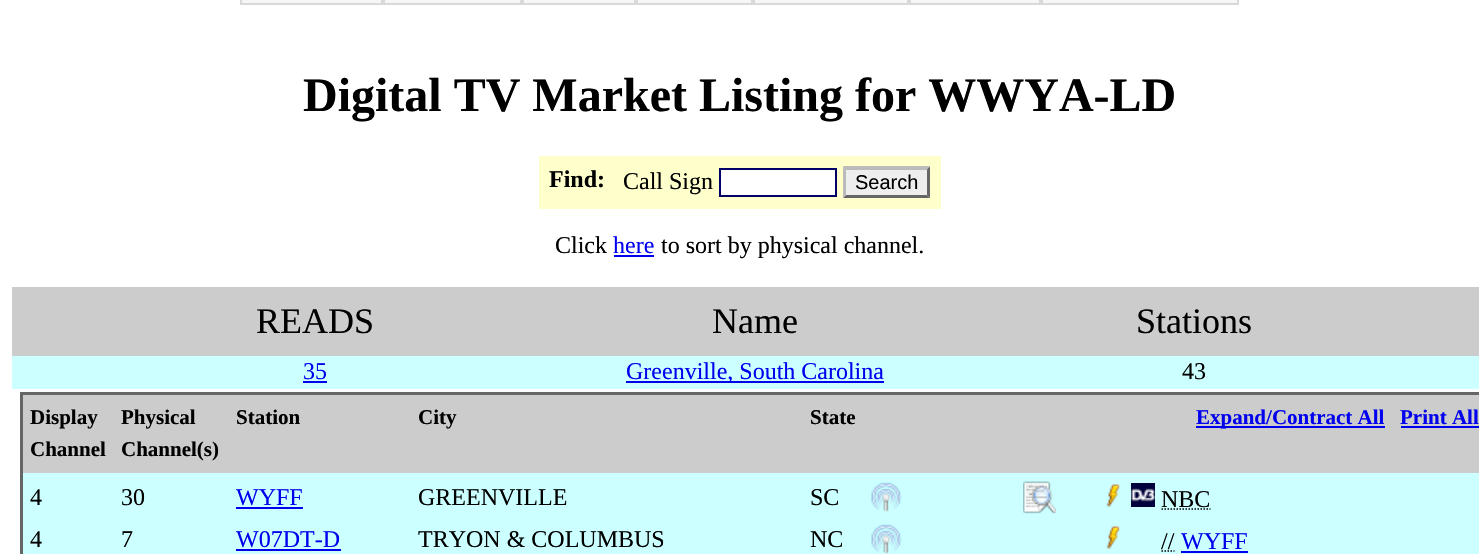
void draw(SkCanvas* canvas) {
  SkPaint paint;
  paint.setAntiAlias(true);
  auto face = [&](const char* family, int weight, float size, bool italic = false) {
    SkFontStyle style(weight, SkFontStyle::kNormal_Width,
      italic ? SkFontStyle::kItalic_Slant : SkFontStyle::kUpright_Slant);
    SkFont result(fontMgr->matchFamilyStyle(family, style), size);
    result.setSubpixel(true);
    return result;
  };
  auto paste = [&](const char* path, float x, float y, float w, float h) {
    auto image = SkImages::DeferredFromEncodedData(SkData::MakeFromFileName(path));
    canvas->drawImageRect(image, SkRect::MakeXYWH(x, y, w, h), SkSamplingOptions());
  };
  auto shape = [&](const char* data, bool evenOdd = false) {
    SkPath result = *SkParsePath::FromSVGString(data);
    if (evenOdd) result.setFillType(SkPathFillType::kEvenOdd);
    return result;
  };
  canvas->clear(0xffffffff);
  paint.setColor(0xfff6f6f6);
  canvas->drawRect(SkRect::MakeXYWH(241, -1, 141, 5), paint);
  paint.setStroke(true);
  paint.setStrokeWidth(2);
  paint.setColor(0xffd9d9d9);
  canvas->drawRect(SkRect::MakeXYWH(241, -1, 141, 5), paint);
  paint.setStroke(false);
  paint.setColor(0xfff6f6f6);
  canvas->drawRect(SkRect::MakeXYWH(384, -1, 137, 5), paint);
  paint.setStroke(true);
  paint.setColor(0xffd9d9d9);
  canvas->drawRect(SkRect::MakeXYWH(384, -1, 137, 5), paint);
  paint.setStroke(false);
  paint.setColor(0xfff6f6f6);
  canvas->drawRect(SkRect::MakeXYWH(523, -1, 112, 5), paint);
  paint.setStroke(true);
  paint.setColor(0xffd9d9d9);
  canvas->drawRect(SkRect::MakeXYWH(523, -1, 112, 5), paint);
  paint.setStroke(false);
  paint.setColor(0xfff6f6f6);
  canvas->drawRect(SkRect::MakeXYWH(637, -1, 115, 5), paint);
  paint.setStroke(true);
  paint.setColor(0xffd9d9d9);
  canvas->drawRect(SkRect::MakeXYWH(637, -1, 115, 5), paint);
  paint.setStroke(false);
  paint.setColor(0xfff6f6f6);
  canvas->drawRect(SkRect::MakeXYWH(754, -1, 154, 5), paint);
  paint.setStroke(true);
  paint.setColor(0xffd9d9d9);
  canvas->drawRect(SkRect::MakeXYWH(754, -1, 154, 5), paint);
  paint.setStroke(false);
  paint.setColor(0xfff6f6f6);
  canvas->drawRect(SkRect::MakeXYWH(910, -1, 130, 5), paint);
  paint.setStroke(true);
  paint.setColor(0xffd9d9d9);
  canvas->drawRect(SkRect::MakeXYWH(910, -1, 130, 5), paint);
  paint.setStroke(false);
  paint.setColor(0xfff6f6f6);
  canvas->drawRect(SkRect::MakeXYWH(1042, -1, 196, 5), paint);
  paint.setStroke(true);
  paint.setColor(0xffd9d9d9);
  canvas->drawRect(SkRect::MakeXYWH(1042, -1, 196, 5), paint);
  paint.setStroke(false);
  paint.setColor(0xffffffcc);
  canvas->drawRect(SkRect::MakeXYWH(539, 156, 402, 53), paint);
  paint.setColor(0xffffffff);
  canvas->drawRect(SkRect::MakeXYWH(720, 169, 116, 27), paint);
  paint.setStroke(true);
  paint.setColor(0xff000066);
  canvas->drawRect(SkRect::MakeXYWH(720, 169, 116, 27), paint);
  paint.setStroke(false);
  paint.setColor(0xffeeeeee);
  canvas->drawRect(SkRect::MakeXYWH(843, 167, 87, 31), paint);
  paint.setColor(0xffbbbbbb);
  canvas->drawPath(shape("M843 166H930L927 170H846Z"), paint);
  paint.setColor(0xff666666);
  canvas->drawPath(shape("M930 166.5V198L927 195V169.5Z"), paint);
  canvas->drawPath(shape("M930 198H843L846 195H927Z"), paint);
  paint.setColor(0xffbbbbbb);
  canvas->drawPath(shape("M843 198V166.5L846 169.5V195Z"), paint);
  {
    const struct { float x, y, w, h; SkColor color; } items[] = {
      {614, 255, 40, 2, 0xff0000ee},
      {12, 287, 1467, 69, 0xffcccccc},
      {12, 356, 1467, 33, 0xffccffff},
      {303, 381, 24, 2, 0xff0000ee},
      {626, 381, 258, 2, 0xff0000ee},
      {23, 473, 1456, 81, 0xffccffff},
    };
    for (auto [x, y, w, h, color] : items) {
      paint.setColor(color);
      canvas->drawRect(SkRect::MakeXYWH(x, y, w, h), paint);
    }
  }
  paint.setStroke(true);
  paint.setStrokeWidth(3);
  paint.setColor(0xff666666);
  canvas->drawRect(SkRect::MakeXYWH(21.5f, 393.5f, 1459, 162), paint);
  paint.setStroke(false);
  {
    const struct { float x, y, w, h; SkColor color; } items[] = {
      {23, 395, 1456, 78, 0xffcccccc},
      {1196, 426, 189, 2, 0xff0000ee},
      {1401, 426, 78, 2, 0xff0000ee},
      {236, 507, 67, 2, 0xff0000ee},
    };
    for (auto [x, y, w, h, color] : items) {
      paint.setColor(color);
      canvas->drawRect(SkRect::MakeXYWH(x, y, w, h), paint);
    }
  }
  paste("img/1.png", 871, 482, 31, 30);
  paste("img/2.png", 1023, 481, 33, 33);
  paste("img/3.png", 1106, 484, 14, 23);
  paste("img/4.png", 1131, 483, 24, 24);
  paint.setStroke(true);
  paint.setStrokeWidth(1.5f);
  paint.setColor(0xff000000);
  paint.setPathEffect(SkDashPathEffect::Make({{1.5f, 1.5f}}, 0));
  canvas->drawPath(shape("M1161.5 509H1210.5"), paint);
  paint.setPathEffect(nullptr);
  paint.setStroke(false);
  paint.setColor(0xff0000ee);
  canvas->drawRect(SkRect::MakeXYWH(236, 549, 105, 2), paint);
  paste("img/1.png", 871, 524, 31, 30);
  paste("img/3.png", 1106, 526, 14, 23);
  paint.setStroke(true);
  paint.setColor(0xff000000);
  paint.setPathEffect(SkDashPathEffect::Make({{1.5f, 1.5f}}, 0));
  canvas->drawPath(shape("M1161.5 551H1174.5"), paint);
  paint.setPathEffect(nullptr);
  paint.setStroke(false);
  paint.setColor(0xff0000ee);
  canvas->drawRect(SkRect::MakeXYWH(1181, 551, 67, 2), paint);
  auto f0 = face("Liberation Serif", 700, 48);
  paint.setColor(0xff000000);
  canvas->drawString("Digital TV Market Listing for WWYA-LD", 303, 111, f0, paint);
  auto f1 = face("Liberation Serif", 700, 24);
  canvas->drawString("Find:", 549, 187, f1, paint);
  auto f2 = face("Liberation Serif", 400, 24);
  canvas->drawString("Call Sign", 623, 189, f2, paint);
  auto f3 = face("Liberation Sans", 400, 20);
  canvas->drawString("Search", 855, 189, f3, paint);
  canvas->drawString("Click", 555, 253, f2, paint);
  paint.setColor(0xff0000ee);
  canvas->drawString("here", 613, 253, f2, paint);
  paint.setColor(0xff000000);
  canvas->drawString("to sort by physical channel.", 661, 253, f2, paint);
  auto f4 = face("Liberation Serif", 400, 36);
  {
    const struct { const char* s; float x, y; } items[] = {
      {"READS", 256, 333},
      {"Name", 712, 333},
      {"Stations", 1136, 333},
    };
    for (auto [s, x, y] : items) {
      canvas->drawString(s, x, y, f4, paint);
    }
  }
  paint.setColor(0xff0000ee);
  canvas->drawString("35", 303, 379, f2, paint);
  canvas->drawString("Greenville, South Carolina", 626, 379, f2, paint);
  paint.setColor(0xff000000);
  canvas->drawString("43", 1182, 379, f2, paint);
  auto f5 = face("Liberation Serif", 700, 21);
  {
    const struct { const char* s; float x, y; } items[] = {
      {"Display", 30, 424},
      {"Channel", 30, 456},
      {"Physical", 121, 424},
      {"Channel(s)", 121, 456},
      {"Station", 236, 424},
      {"City", 418, 424},
      {"State", 810, 424},
    };
    for (auto [s, x, y] : items) {
      canvas->drawString(s, x, y, f5, paint);
    }
  }
  paint.setColor(0xff0000ee);
  canvas->drawString("Expand/Contract All", 1196, 424, f5, paint);
  canvas->drawString("Print All", 1400, 424, f5, paint);
  paint.setColor(0xff000000);
  canvas->drawString("4", 30, 505, f2, paint);
  canvas->drawString("30", 121, 505, f2, paint);
  paint.setColor(0xff0000ee);
  canvas->drawString("WYFF", 236, 505, f2, paint);
  paint.setColor(0xff000000);
  {
    const struct { const char* s; float x, y; } items[] = {
      {"GREENVILLE", 418, 505},
      {"SC", 810, 505},
      {"NBC", 1161, 507},
      {"4", 30, 547},
      {"7", 121, 547},
    };
    for (auto [s, x, y] : items) {
      canvas->drawString(s, x, y, f2, paint);
    }
  }
  paint.setColor(0xff0000ee);
  canvas->drawString("W07DT-D", 236, 547, f2, paint);
  paint.setColor(0xff000000);
  {
    const struct { const char* s; float x, y; } items[] = {
      {"TRYON & COLUMBUS", 418, 547},
      {"NC", 810, 547},
      {"//", 1161, 549},
    };
    for (auto [s, x, y] : items) {
      canvas->drawString(s, x, y, f2, paint);
    }
  }
  paint.setColor(0xff0000ee);
  canvas->drawString("WYFF", 1181, 549, f2, paint);
}
